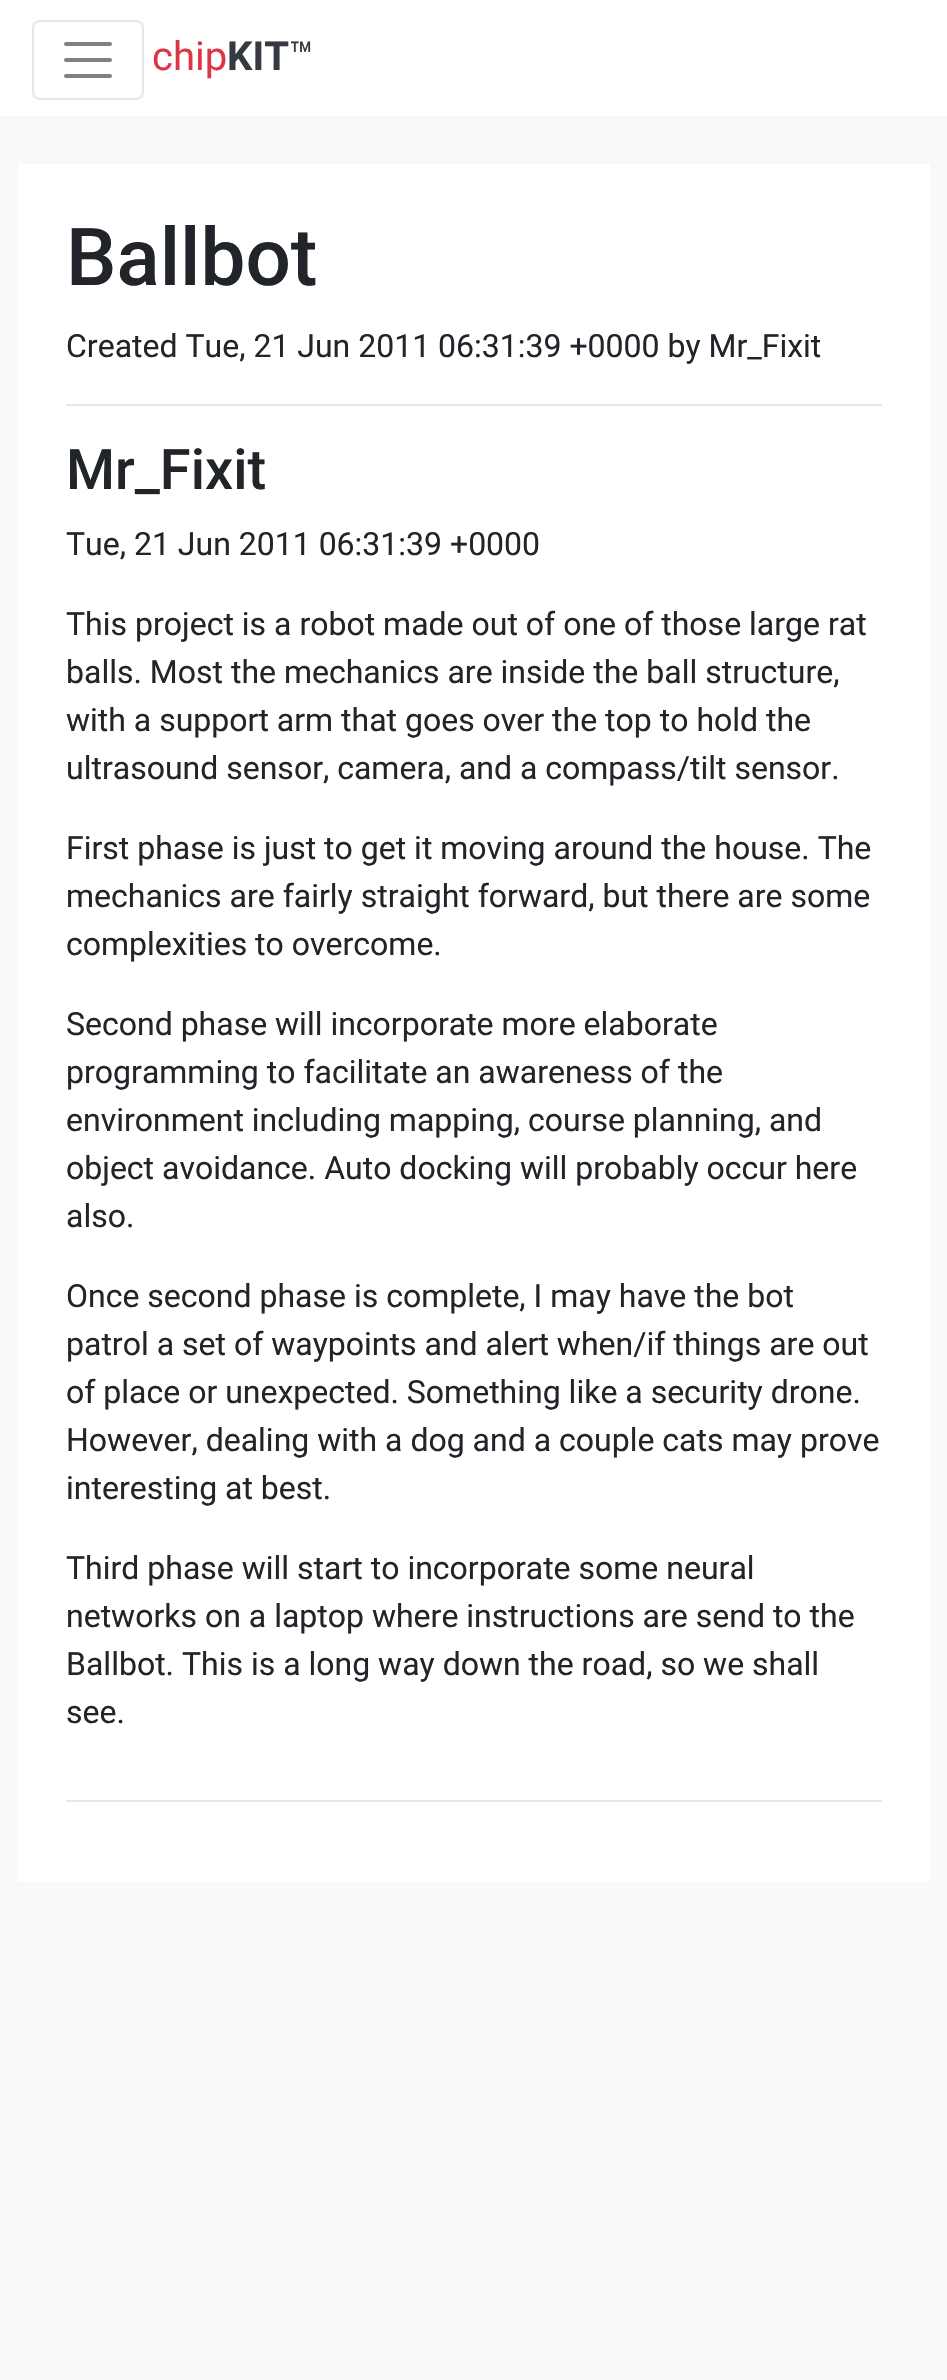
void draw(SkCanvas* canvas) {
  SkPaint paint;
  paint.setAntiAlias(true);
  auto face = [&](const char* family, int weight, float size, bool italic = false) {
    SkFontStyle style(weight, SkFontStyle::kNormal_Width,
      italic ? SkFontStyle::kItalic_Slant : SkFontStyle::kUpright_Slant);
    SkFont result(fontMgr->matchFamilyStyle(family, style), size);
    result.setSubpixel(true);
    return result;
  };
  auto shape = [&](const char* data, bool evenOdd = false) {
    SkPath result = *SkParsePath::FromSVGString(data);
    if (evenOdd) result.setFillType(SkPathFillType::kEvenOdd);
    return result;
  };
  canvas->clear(0xfff8f9fa);
  paint.setColor(0xffffffff);
  canvas->drawRect(SkRect::MakeXYWH(0, 0, 947, 116), paint);
  paint.setStroke(true);
  paint.setStrokeWidth(2);
  paint.setColor(0xffe6e6e6);
  canvas->drawRoundRect(SkRect::MakeXYWH(33, 21, 110, 78), 7, 7, paint);
  paint.setStrokeWidth(4);
  paint.setStrokeCap(SkPaint::kRound_Cap);
  paint.setColor(0xff808080);
  canvas->drawPath(shape("M66 44H110M66 60H110M66 76H110"), paint);
  paint.setStroke(false);
  {
    const struct { float x, y, w, h; SkColor color; } items[] = {
      {18, 164, 912, 1718, 0xffffffff},
      {66, 404, 816, 2, 0xffe6e6e6},
      {66, 1800, 816, 2, 0xffe6e6e6},
    };
    for (auto [x, y, w, h, color] : items) {
      paint.setColor(color);
      canvas->drawRect(SkRect::MakeXYWH(x, y, w, h), paint);
    }
  }
  auto f0 = face("Roboto", 400, 40);
  paint.setColor(0xffdc3545);
  canvas->drawString("chip", 152, 70, f0, paint);
  auto f1 = face("Roboto", 700, 40);
  paint.setColor(0xff343a40);
  canvas->drawString("KIT", 227, 70, f1, paint);
  canvas->drawString("™", 289, 70, f0, paint);
  auto f2 = face("Roboto", 500, 80);
  paint.setColor(0xff212529);
  canvas->drawString("Ballbot", 66, 285, f2, paint);
  auto f3 = face("Roboto", 400, 32);
  canvas->drawString("Created Tue, 21 Jun 2011 06:31:39 +0000 by Mr_Fixit", 66, 357, f3, paint);
  auto f4 = face("Roboto", 500, 56);
  canvas->drawString("Mr_Fixit", 66, 489, f4, paint);
  {
    const struct { const char* s; float x, y; } items[] = {
      {"Tue, 21 Jun 2011 06:31:39 +0000", 66, 555},
      {"This project is a robot made out of one of those large rat", 66, 635},
      {"balls. Most the mechanics are inside the ball structure,", 66, 683},
      {"with a support arm that goes over the top to hold the", 66, 731},
      {"ultrasound sensor, camera, and a compass/tilt sensor.", 66, 779},
      {"First phase is just to get it moving around the house. The", 66, 859},
      {"mechanics are fairly straight forward, but there are some", 66, 907},
      {"complexities to overcome.", 66, 955},
      {"Second phase will incorporate more elaborate", 66, 1035},
      {"programming to facilitate an awareness of the", 66, 1083},
      {"environment including mapping, course planning, and", 66, 1131},
      {"object avoidance. Auto docking will probably occur here", 66, 1179},
      {"also.", 66, 1227},
      {"Once second phase is complete, I may have the bot", 66, 1307},
      {"patrol a set of waypoints and alert when/if things are out", 66, 1355},
      {"of place or unexpected. Something like a security drone.", 66, 1403},
      {"However, dealing with a dog and a couple cats may prove", 66, 1451},
      {"interesting at best.", 66, 1499},
      {"Third phase will start to incorporate some neural", 66, 1579},
      {"networks on a laptop where instructions are send to the", 66, 1627},
      {"Ballbot. This is a long way down the road, so we shall", 66, 1675},
      {"see.", 66, 1723},
    };
    for (auto [s, x, y] : items) {
      canvas->drawString(s, x, y, f3, paint);
    }
  }
}
